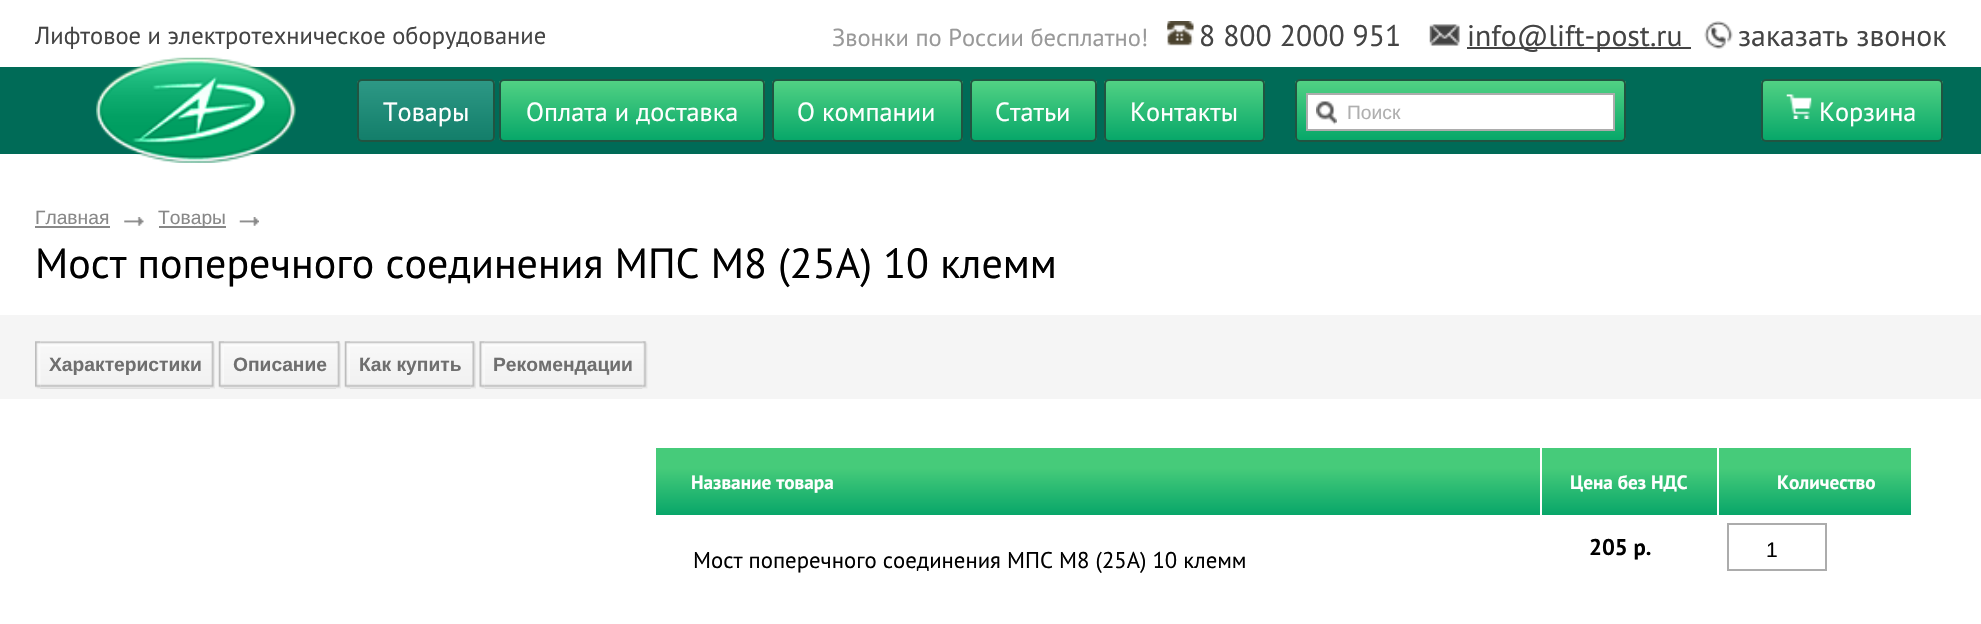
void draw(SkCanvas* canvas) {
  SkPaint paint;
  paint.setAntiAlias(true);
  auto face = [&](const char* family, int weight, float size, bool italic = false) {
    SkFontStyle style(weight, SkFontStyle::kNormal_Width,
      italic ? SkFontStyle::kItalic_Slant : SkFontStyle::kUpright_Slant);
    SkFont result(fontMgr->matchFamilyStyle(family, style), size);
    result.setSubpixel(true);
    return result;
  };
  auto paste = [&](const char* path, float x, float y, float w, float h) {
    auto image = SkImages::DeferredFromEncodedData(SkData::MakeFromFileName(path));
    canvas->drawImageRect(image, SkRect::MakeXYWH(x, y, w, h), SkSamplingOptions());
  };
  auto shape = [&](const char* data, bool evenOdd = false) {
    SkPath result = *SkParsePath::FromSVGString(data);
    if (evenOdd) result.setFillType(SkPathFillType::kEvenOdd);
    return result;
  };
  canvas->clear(0xffffffff);
  paste("img/1.png", 1167, 21, 27, 25);
  paste("img/2.png", 1429, 24, 31, 22);
  paint.setColor(0xff444444);
  canvas->drawRect(SkRect::MakeXYWH(1467, 47, 224, 2), paint);
  paste("img/3.png", 1704, 21, 29, 28);
  paint.setColor(0xff006b57);
  canvas->drawRect(SkRect::MakeXYWH(0, 67, 1981, 87), paint);
  paste("img/4.png", 96, 57, 200, 106);
  canvas->save();
  canvas->clipPath(shape("M362 79H490C493 79 495 81 495 84V137C495 140 493 142 490 142H362C359 142 357 140 357 137V84C357 81 359 79 362 79Z"), true);
  {
    const SkColor colors[] = {0xff2d9885, 0xff137e6a};
    const float stops[] = {0, 1};
    const SkPoint ends[] = {{426, 81}, {426, 140}};
    paint.setShader(SkGradientShader::MakeLinear(ends, colors, stops, 2, SkTileMode::kClamp));
    paint.setAlpha(255);
  }
  canvas->drawRect(SkRect::MakeXYWH(357, 81, 138, 59), paint);
  canvas->restore();
  paint.setStroke(true);
  paint.setStrokeWidth(2);
  paint.setShader(nullptr);
  paint.setColor(0xff215441);
  canvas->drawRoundRect(SkRect::MakeXYWH(358, 80, 136, 61), 4, 4, paint);
  canvas->save();
  canvas->clipPath(shape("M504 79H760C763 79 765 81 765 84V137C765 140 763 142 760 142H504C501 142 499 140 499 137V84C499 81 501 79 504 79Z"), true);
  paint.setStroke(false);
  {
    const SkColor colors[] = {0xff52d284, 0xff07a769};
    const float stops[] = {0, 1};
    const SkPoint ends[] = {{632, 80}, {632, 140}};
    paint.setShader(SkGradientShader::MakeLinear(ends, colors, stops, 2, SkTileMode::kClamp));
    paint.setAlpha(255);
  }
  canvas->drawRect(SkRect::MakeXYWH(499, 81, 266, 59), paint);
  canvas->restore();
  paint.setStroke(true);
  paint.setShader(nullptr);
  paint.setColor(0xff215441);
  canvas->drawRoundRect(SkRect::MakeXYWH(500, 80, 264, 61), 4, 4, paint);
  canvas->save();
  canvas->clipPath(shape("M777 79H958C961 79 963 81 963 84V137C963 140 961 142 958 142H777C774 142 772 140 772 137V84C772 81 774 79 777 79Z"), true);
  paint.setStroke(false);
  {
    const SkColor colors[] = {0xff52d284, 0xff07a769};
    const float stops[] = {0, 1};
    const SkPoint ends[] = {{867, 80}, {867, 140}};
    paint.setShader(SkGradientShader::MakeLinear(ends, colors, stops, 2, SkTileMode::kClamp));
    paint.setAlpha(255);
  }
  canvas->drawRect(SkRect::MakeXYWH(772, 81, 191, 59), paint);
  canvas->restore();
  paint.setStroke(true);
  paint.setShader(nullptr);
  paint.setColor(0xff215441);
  canvas->drawRoundRect(SkRect::MakeXYWH(773, 80, 189, 61), 4, 4, paint);
  canvas->save();
  canvas->clipPath(shape("M975 79H1092C1095 79 1097 81 1097 84V137C1097 140 1095 142 1092 142H975C972 142 970 140 970 137V84C970 81 972 79 975 79Z"), true);
  paint.setStroke(false);
  {
    const SkColor colors[] = {0xff52d284, 0xff07a769};
    const float stops[] = {0, 1};
    const SkPoint ends[] = {{1033, 81}, {1033, 140}};
    paint.setShader(SkGradientShader::MakeLinear(ends, colors, stops, 2, SkTileMode::kClamp));
    paint.setAlpha(255);
  }
  canvas->drawRect(SkRect::MakeXYWH(970, 81, 127, 59), paint);
  canvas->restore();
  paint.setStroke(true);
  paint.setShader(nullptr);
  paint.setColor(0xff215441);
  canvas->drawRoundRect(SkRect::MakeXYWH(971, 80, 125, 61), 4, 4, paint);
  canvas->save();
  canvas->clipPath(shape("M1109 79H1260C1263 79 1265 81 1265 84V137C1265 140 1263 142 1260 142H1109C1106 142 1104 140 1104 137V84C1104 81 1106 79 1109 79Z"), true);
  paint.setStroke(false);
  {
    const SkColor colors[] = {0xff52d284, 0xff07a769};
    const float stops[] = {0, 1};
    const SkPoint ends[] = {{1185, 80}, {1185, 140}};
    paint.setShader(SkGradientShader::MakeLinear(ends, colors, stops, 2, SkTileMode::kClamp));
    paint.setAlpha(255);
  }
  canvas->drawRect(SkRect::MakeXYWH(1104, 81, 161, 59), paint);
  canvas->restore();
  paint.setStroke(true);
  paint.setShader(nullptr);
  paint.setColor(0xff215441);
  canvas->drawRoundRect(SkRect::MakeXYWH(1105, 80, 159, 61), 4, 4, paint);
  canvas->save();
  canvas->clipPath(shape("M1300 79H1621C1624 79 1626 81 1626 84V137C1626 140 1624 142 1621 142H1300C1297 142 1295 140 1295 137V84C1295 81 1297 79 1300 79Z"), true);
  paint.setStroke(false);
  {
    const SkColor colors[] = {0xff52d284, 0xff07a769};
    const float stops[] = {0, 1};
    const SkPoint ends[] = {{1460, 80}, {1460, 140}};
    paint.setShader(SkGradientShader::MakeLinear(ends, colors, stops, 2, SkTileMode::kClamp));
    paint.setAlpha(255);
  }
  canvas->drawRect(SkRect::MakeXYWH(1295, 81, 331, 59), paint);
  canvas->restore();
  paint.setStroke(true);
  paint.setShader(nullptr);
  paint.setColor(0xff215441);
  canvas->drawRoundRect(SkRect::MakeXYWH(1296, 80, 329, 61), 4, 4, paint);
  paint.setStroke(false);
  paint.setColor(0xffffffff);
  canvas->drawRect(SkRect::MakeXYWH(1307, 94, 307, 36), paint);
  paint.setStroke(true);
  paint.setColor(0xffacacac);
  canvas->drawRect(SkRect::MakeXYWH(1307, 94, 307, 36), paint);
  paste("img/5.png", 1316, 101, 21, 24);
  canvas->save();
  canvas->clipPath(shape("M1766 79H1938C1941 79 1943 81 1943 84V137C1943 140 1941 142 1938 142H1766C1763 142 1761 140 1761 137V84C1761 81 1763 79 1766 79Z"), true);
  paint.setStroke(false);
  {
    const SkColor colors[] = {0xff52d284, 0xff07a769};
    const float stops[] = {0, 1};
    const SkPoint ends[] = {{1852, 80}, {1852, 140}};
    paint.setShader(SkGradientShader::MakeLinear(ends, colors, stops, 2, SkTileMode::kClamp));
    paint.setAlpha(255);
  }
  canvas->drawRect(SkRect::MakeXYWH(1761, 81, 182, 59), paint);
  canvas->restore();
  paint.setStroke(true);
  paint.setShader(nullptr);
  paint.setColor(0xff215441);
  canvas->drawRoundRect(SkRect::MakeXYWH(1762, 80, 180, 61), 4, 4, paint);
  paste("img/6.png", 1786, 94, 26, 25);
  paint.setStroke(false);
  paint.setColor(0xff888888);
  canvas->drawRect(SkRect::MakeXYWH(35, 226, 75, 2), paint);
  paste("img/7.png", 124, 217, 20, 9);
  canvas->drawRect(SkRect::MakeXYWH(159, 226, 67, 2), paint);
  paste("img/8.png", 239, 217, 20, 9);
  paint.setColor(0xfff5f5f5);
  canvas->drawRect(SkRect::MakeXYWH(0, 315, 1981, 84), paint);
  paste("img/10.png", 40, 341, 170, 48);
  paste("img/9.png", 35, 341, 6, 48);
  paste("img/11.png", 210, 341, 5, 48);
  paste("img/12.png", 218, 341, 6, 48);
  paste("img/13.png", 224, 341, 112, 48);
  paste("img/14.png", 336, 341, 5, 48);
  paste("img/15.png", 344, 341, 6, 48);
  paste("img/16.png", 350, 341, 121, 48);
  paste("img/17.png", 470, 341, 6, 48);
  paste("img/19.png", 484, 341, 159, 48);
  paste("img/18.png", 479, 341, 6, 48);
  paste("img/20.png", 642, 341, 6, 48);
  {
    const SkColor colors[] = {0xff08a669, 0xff46cb7a};
    const float stops[] = {0, 0.7f};
    const SkPoint ends[] = {{674, 515}, {674, 448}};
    paint.setShader(SkGradientShader::MakeLinear(ends, colors, stops, 2, SkTileMode::kClamp));
    paint.setAlpha(255);
  }
  canvas->drawRect(SkRect::MakeXYWH(656, 448, 35, 67), paint);
  {
    const SkColor colors[] = {0xff08a669, 0xff46cb7a};
    const float stops[] = {0, 0.7f};
    const SkPoint ends[] = {{1116, 515}, {1116, 448}};
    paint.setShader(SkGradientShader::MakeLinear(ends, colors, stops, 2, SkTileMode::kClamp));
    paint.setAlpha(255);
  }
  canvas->drawRect(SkRect::MakeXYWH(691, 448, 849, 67), paint);
  {
    const SkColor colors[] = {0xff08a669, 0xff46cb7a};
    const float stops[] = {0, 0.7f};
    const SkPoint ends[] = {{1629, 515}, {1629, 448}};
    paint.setShader(SkGradientShader::MakeLinear(ends, colors, stops, 2, SkTileMode::kClamp));
    paint.setAlpha(255);
  }
  canvas->drawRect(SkRect::MakeXYWH(1542, 448, 175, 67), paint);
  {
    const SkColor colors[] = {0xff08a669, 0xff46cb7a};
    const float stops[] = {0, 0.7f};
    const SkPoint ends[] = {{1797, 515}, {1797, 448}};
    paint.setShader(SkGradientShader::MakeLinear(ends, colors, stops, 2, SkTileMode::kClamp));
    paint.setAlpha(255);
  }
  canvas->drawRect(SkRect::MakeXYWH(1719, 448, 157, 67), paint);
  {
    const SkColor colors[] = {0xff08a669, 0xff46cb7a};
    const float stops[] = {0, 0.7f};
    const SkPoint ends[] = {{1894, 515}, {1894, 448}};
    paint.setShader(SkGradientShader::MakeLinear(ends, colors, stops, 2, SkTileMode::kClamp));
    paint.setAlpha(255);
  }
  canvas->drawRect(SkRect::MakeXYWH(1876, 448, 35, 67), paint);
  paint.setStroke(true);
  paint.setShader(nullptr);
  paint.setColor(0xffacacac);
  canvas->drawRect(SkRect::MakeXYWH(1728, 524, 98, 46), paint);
  auto f0 = face("PT Sans", 400, 24.5f);
  paint.setStroke(false);
  paint.setColor(0xff444444);
  canvas->drawString("Лифтовое и электротехническое оборудование", 35, 44, f0, paint);
  paint.setColor(0xff999999);
  canvas->drawString("Звонки по России бесплатно!", 832, 46, f0, paint);
  auto f1 = face("PT Sans", 400, 29.75f);
  paint.setColor(0xff444444);
  {
    const struct { const char* s; float x, y; } items[] = {
      {"8 800 2000 951", 1199, 46},
      {"info@lift-post.ru", 1467, 46},
      {"заказать звонок", 1738, 46},
    };
    for (auto [s, x, y] : items) {
      canvas->drawString(s, x, y, f1, paint);
    }
  }
  auto f2 = face("PT Sans", 400, 26.25f);
  paint.setColor(0xffffffff);
  {
    const struct { const char* s; float x, y; } items[] = {
      {"Товары", 383, 121},
      {"Оплата и доставка", 526, 121},
      {"О компании", 797, 121},
      {"Статьи", 995, 121},
      {"Контакты", 1130, 121},
    };
    for (auto [s, x, y] : items) {
      canvas->drawString(s, x, y, f2, paint);
    }
  }
  auto f3 = face("Liberation Sans", 400, 19.25f);
  paint.setColor(0xffafafaf);
  canvas->drawString("Поиск", 1347, 119, f3, paint);
  paint.setColor(0xffffffff);
  canvas->drawString("Корзина", 1819, 121, f2, paint);
  paint.setColor(0xff888888);
  canvas->drawString("Главная", 35, 224, f3, paint);
  canvas->drawString("Товары", 158, 224, f3, paint);
  auto f4 = face("PT Sans", 400, 42);
  paint.setColor(0xff000000);
  canvas->drawString("Мост поперечного соединения МПС М8 (25А) 10 клемм", 35, 278, f4, paint);
  auto f5 = face("Liberation Sans", 700, 19.25f);
  paint.setColor(0xff6f6f6f);
  {
    const struct { const char* s; float x, y; } items[] = {
      {"Характеристики", 49, 371},
      {"Описание", 233, 371},
      {"Как купить", 359, 371},
      {"Рекомендации", 493, 371},
    };
    for (auto [s, x, y] : items) {
      canvas->drawString(s, x, y, f5, paint);
    }
  }
  auto f6 = face("PT Sans", 700, 19.25f);
  paint.setColor(0xffffffff);
  {
    const struct { const char* s; float x, y; } items[] = {
      {"Название товара", 691, 489},
      {"Цена без НДС", 1570, 489},
      {"Количество", 1777, 489},
    };
    for (auto [s, x, y] : items) {
      canvas->drawString(s, x, y, f6, paint);
    }
  }
  auto f7 = face("PT Sans", 700, 22.75f);
  paint.setColor(0xff000000);
  canvas->drawString("205 р.", 1589, 555, f7, paint);
  auto f8 = face("Liberation Sans", 400, 21);
  canvas->drawString("1", 1766, 557, f8, paint);
  auto f9 = face("PT Sans", 400, 22.75f);
  canvas->drawString("Мост поперечного соединения МПС М8 (25А) 10 клемм", 693, 568, f9, paint);
}
